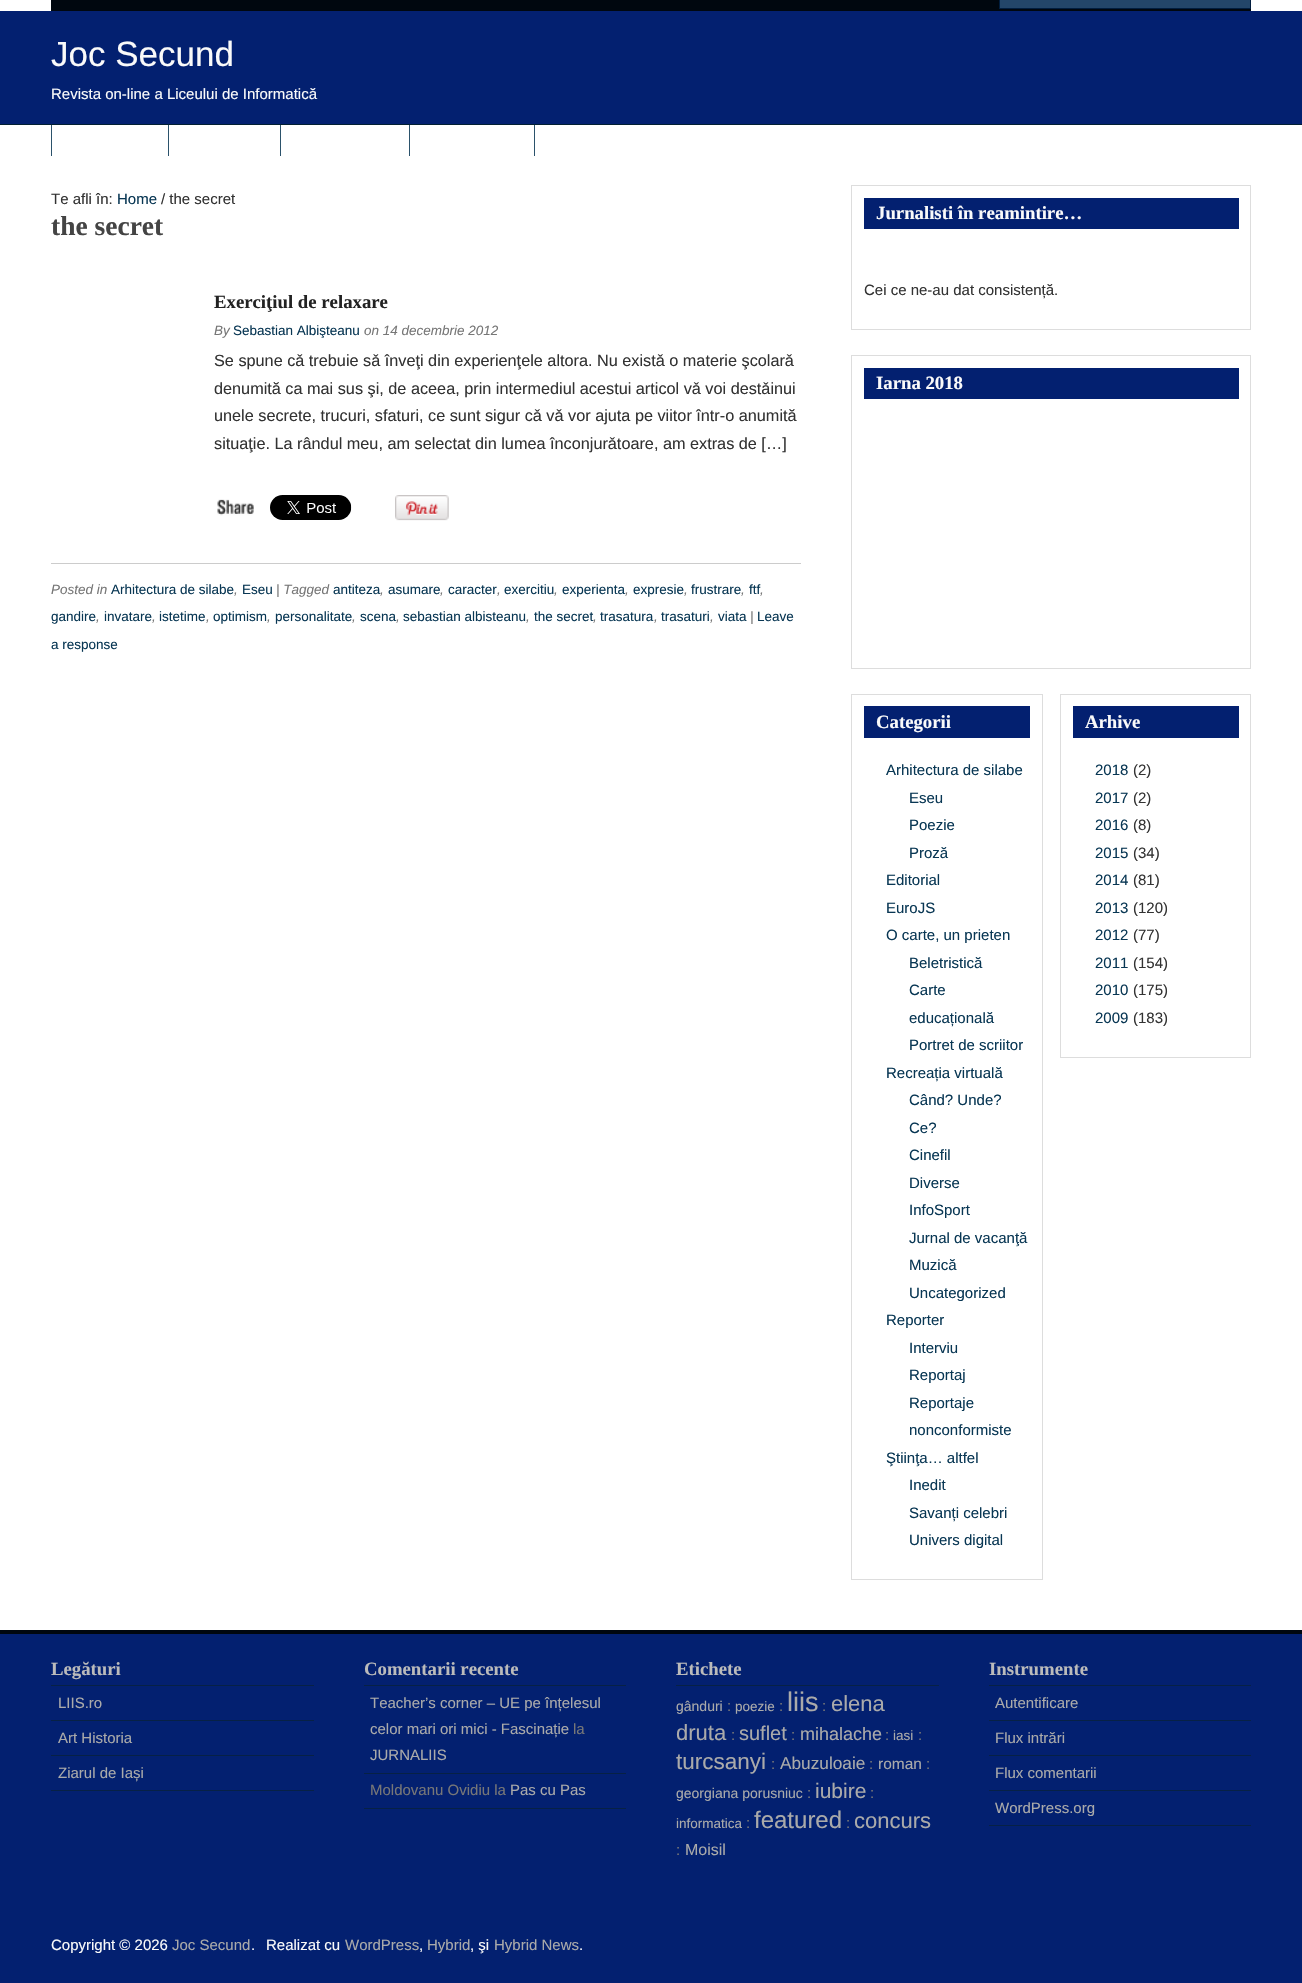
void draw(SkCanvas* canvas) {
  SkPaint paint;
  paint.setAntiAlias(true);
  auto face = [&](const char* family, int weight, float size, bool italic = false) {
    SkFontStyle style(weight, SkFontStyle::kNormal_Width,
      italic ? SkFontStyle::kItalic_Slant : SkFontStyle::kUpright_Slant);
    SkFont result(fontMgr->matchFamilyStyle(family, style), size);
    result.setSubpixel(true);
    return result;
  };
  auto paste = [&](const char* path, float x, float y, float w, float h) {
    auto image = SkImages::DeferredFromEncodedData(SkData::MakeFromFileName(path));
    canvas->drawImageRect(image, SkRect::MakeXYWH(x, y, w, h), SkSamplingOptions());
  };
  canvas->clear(0xffffffff);
  paint.setColor(0xff00070f);
  canvas->drawRect(SkRect::MakeXYWH(51, 0, 1200, 11), paint);
  paint.setColor(0xff234669);
  canvas->drawRect(SkRect::MakeXYWH(999.5f, -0.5f, 251, 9), paint);
  paint.setStroke(true);
  paint.setStrokeWidth(1);
  paint.setColor(0xff011e3f);
  canvas->drawRect(SkRect::MakeXYWH(999.5f, -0.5f, 251, 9), paint);
  paint.setStroke(false);
  {
    const struct { float x, y, w, h; SkColor color; } items[] = {
      {0, 11, 1302, 113, 0xff032070},
      {0, 124, 1302, 1, 0xff021f32},
      {51, 125, 1, 31, 0xff2b526b},
      {168, 125, 1, 31, 0xff2b526b},
      {280, 125, 1, 31, 0xff2b526b},
      {409, 125, 1, 31, 0xff2b526b},
      {534, 125, 1, 31, 0xff2b526b},
    };
    for (auto [x, y, w, h, color] : items) {
      paint.setColor(color);
      canvas->drawRect(SkRect::MakeXYWH(x, y, w, h), paint);
    }
  }
  paste("img/1.png", 217, 499, 37, 17);
  paste("img/2.png", 270, 495, 82, 25);
  paste("img/3.png", 395, 495, 54, 26);
  paint.setColor(0xffcccccc);
  canvas->drawRect(SkRect::MakeXYWH(51, 563, 750, 1), paint);
  paint.setStroke(true);
  paint.setColor(0xffdddddd);
  canvas->drawRect(SkRect::MakeXYWH(851.5f, 185.5f, 399, 144), paint);
  paint.setStroke(false);
  paint.setColor(0xff032070);
  canvas->drawRect(SkRect::MakeXYWH(864, 198, 375, 31), paint);
  paint.setStroke(true);
  paint.setColor(0xffdddddd);
  canvas->drawRect(SkRect::MakeXYWH(851.5f, 355.5f, 399, 313), paint);
  paint.setStroke(false);
  paint.setColor(0xff032070);
  canvas->drawRect(SkRect::MakeXYWH(864, 368, 375, 31), paint);
  paint.setStroke(true);
  paint.setColor(0xffdddddd);
  canvas->drawRect(SkRect::MakeXYWH(851.5f, 694.5f, 191, 885), paint);
  paint.setStroke(false);
  paint.setColor(0xff032070);
  canvas->drawRect(SkRect::MakeXYWH(864, 706, 166, 32), paint);
  paint.setStroke(true);
  paint.setColor(0xffdddddd);
  canvas->drawRect(SkRect::MakeXYWH(1060.5f, 694.5f, 190, 363), paint);
  paint.setStroke(false);
  {
    const struct { float x, y, w, h; SkColor color; } items[] = {
      {1073, 706, 166, 32, 0xff032070},
      {0, 1634, 1302, 349, 0xff032070},
      {0, 1630, 1302, 4, 0xff00070f},
      {51, 1685, 263, 1, 0xff072145},
      {51, 1720, 263, 1, 0xff072145},
      {51, 1755, 263, 1, 0xff072145},
      {51, 1790, 263, 1, 0xff072145},
      {364, 1685, 262, 1, 0xff072145},
      {364, 1773, 262, 1, 0xff072145},
      {364, 1808, 262, 1, 0xff072145},
      {676, 1685, 263, 1, 0xff072145},
      {989, 1685, 262, 1, 0xff072145},
      {989, 1720, 262, 1, 0xff072145},
      {989, 1755, 262, 1, 0xff072145},
      {989, 1790, 262, 1, 0xff072145},
      {989, 1825, 262, 1, 0xff072145},
    };
    for (auto [x, y, w, h, color] : items) {
      paint.setColor(color);
      canvas->drawRect(SkRect::MakeXYWH(x, y, w, h), paint);
    }
  }
  auto f0 = face("Liberation Sans", 400, 35);
  paint.setColor(0xfffafafa);
  canvas->drawString("Joc Secund", 51, 66, f0, paint);
  auto f1 = face("Liberation Sans", 400, 15);
  canvas->drawString("Revista on-line a Liceului de Informatică", 51, 99, f1, paint);
  paint.setColor(0xff333333);
  canvas->drawString("Te afli în:", 51, 204, f1, paint);
  paint.setColor(0xff093754);
  canvas->drawString("Home", 117, 204, f1, paint);
  paint.setColor(0xff333333);
  canvas->drawString("/ the secret", 161, 204, f1, paint);
  auto f2 = face("Liberation Serif", 700, 27.5f);
  paint.setColor(0xff444444);
  canvas->drawString("the secret", 51, 235, f2, paint);
  auto f3 = face("Liberation Serif", 700, 18.75f);
  paint.setColor(0xff222222);
  canvas->drawString("Exerciţiul de relaxare", 214, 308, f3, paint);
  auto f4 = face("Liberation Sans", 400, 13.5f, true);
  paint.setColor(0xff777777);
  canvas->drawString("By", 214, 335, f4, paint);
  auto f5 = face("Liberation Sans", 400, 13.5f);
  paint.setColor(0xff093754);
  canvas->drawString("Sebastian Albişteanu", 233, 335, f5, paint);
  paint.setColor(0xff777777);
  canvas->drawString("on 14 decembrie 2012", 364, 335, f4, paint);
  auto f6 = face("Liberation Sans", 400, 16.25f);
  paint.setColor(0xff333333);
  {
    const struct { const char* s; float x, y; } items[] = {
      {"Se spune cǎ trebuie sǎ înveţi din experienţele altora. Nu existǎ o materie şcolarǎ", 214, 366},
      {"denumită ca mai sus şi, de aceea, prin intermediul acestui articol vǎ voi destǎinui", 214, 394},
      {"unele secrete, trucuri, sfaturi, ce sunt sigur cǎ vǎ vor ajuta pe viitor într-o anumită", 214, 421},
      {"situaţie. La rândul meu, am selectat din lumea înconjurǎtoare, am extras de […]", 214, 449},
    };
    for (auto [s, x, y] : items) {
      canvas->drawString(s, x, y, f6, paint);
    }
  }
  paint.setColor(0xff777777);
  canvas->drawString("Posted in", 51, 594, f4, paint);
  paint.setColor(0xff093754);
  canvas->drawString("Arhitectura de silabe", 111, 594, f5, paint);
  paint.setColor(0xff777777);
  canvas->drawString(",", 234, 594, f4, paint);
  paint.setColor(0xff093754);
  canvas->drawString("Eseu", 242, 594, f5, paint);
  paint.setColor(0xff777777);
  canvas->drawString("| Tagged", 276, 594, f4, paint);
  paint.setColor(0xff093754);
  canvas->drawString("antiteza", 333, 594, f5, paint);
  paint.setColor(0xff777777);
  canvas->drawString(",", 380, 594, f4, paint);
  paint.setColor(0xff093754);
  canvas->drawString("asumare", 388, 594, f5, paint);
  paint.setColor(0xff777777);
  canvas->drawString(",", 440, 594, f4, paint);
  paint.setColor(0xff093754);
  canvas->drawString("caracter", 448, 594, f5, paint);
  paint.setColor(0xff777777);
  canvas->drawString(",", 497, 594, f4, paint);
  paint.setColor(0xff093754);
  canvas->drawString("exercitiu", 504, 594, f5, paint);
  paint.setColor(0xff777777);
  canvas->drawString(",", 554, 594, f4, paint);
  paint.setColor(0xff093754);
  canvas->drawString("experienta", 562, 594, f5, paint);
  paint.setColor(0xff777777);
  canvas->drawString(",", 625, 594, f4, paint);
  paint.setColor(0xff093754);
  canvas->drawString("expresie", 633, 594, f5, paint);
  paint.setColor(0xff777777);
  canvas->drawString(",", 684, 594, f4, paint);
  paint.setColor(0xff093754);
  canvas->drawString("frustrare", 691, 594, f5, paint);
  paint.setColor(0xff777777);
  canvas->drawString(",", 741, 594, f4, paint);
  paint.setColor(0xff093754);
  canvas->drawString("ftf", 749, 594, f5, paint);
  paint.setColor(0xff777777);
  canvas->drawString(",", 760, 594, f4, paint);
  paint.setColor(0xff093754);
  canvas->drawString("gandire", 51, 621, f5, paint);
  paint.setColor(0xff777777);
  canvas->drawString(",", 96, 621, f4, paint);
  paint.setColor(0xff093754);
  canvas->drawString("invatare", 104, 621, f5, paint);
  paint.setColor(0xff777777);
  canvas->drawString(",", 152, 621, f4, paint);
  paint.setColor(0xff093754);
  canvas->drawString("istetime", 159, 621, f5, paint);
  paint.setColor(0xff777777);
  canvas->drawString(",", 206, 621, f4, paint);
  paint.setColor(0xff093754);
  canvas->drawString("optimism", 213, 621, f5, paint);
  paint.setColor(0xff777777);
  canvas->drawString(",", 267, 621, f4, paint);
  paint.setColor(0xff093754);
  canvas->drawString("personalitate", 275, 621, f5, paint);
  paint.setColor(0xff777777);
  canvas->drawString(",", 352, 621, f4, paint);
  paint.setColor(0xff093754);
  canvas->drawString("scena", 360, 621, f5, paint);
  paint.setColor(0xff777777);
  canvas->drawString(",", 396, 621, f4, paint);
  paint.setColor(0xff093754);
  canvas->drawString("sebastian albisteanu", 403, 621, f5, paint);
  paint.setColor(0xff777777);
  canvas->drawString(",", 526, 621, f4, paint);
  paint.setColor(0xff093754);
  canvas->drawString("the secret", 534, 621, f5, paint);
  paint.setColor(0xff777777);
  canvas->drawString(",", 593, 621, f4, paint);
  paint.setColor(0xff093754);
  canvas->drawString("trasatura", 600, 621, f5, paint);
  paint.setColor(0xff777777);
  canvas->drawString(",", 654, 621, f4, paint);
  paint.setColor(0xff093754);
  canvas->drawString("trasaturi", 661, 621, f5, paint);
  paint.setColor(0xff777777);
  canvas->drawString(",", 710, 621, f4, paint);
  paint.setColor(0xff093754);
  canvas->drawString("viata", 718, 621, f5, paint);
  paint.setColor(0xff777777);
  canvas->drawString("|", 750, 621, f4, paint);
  paint.setColor(0xff093754);
  canvas->drawString("Leave", 757, 621, f5, paint);
  canvas->drawString("a response", 51, 649, f5, paint);
  paint.setColor(0xfffafafa);
  canvas->drawString("Jurnalisti în reamintire…", 876, 219, f3, paint);
  paint.setColor(0xff333333);
  canvas->drawString("Cei ce ne-au dat consistență.", 864, 295, f1, paint);
  paint.setColor(0xfffafafa);
  canvas->drawString("Iarna 2018", 876, 389, f3, paint);
  canvas->drawString("Categorii", 876, 728, f3, paint);
  paint.setColor(0xff093754);
  {
    const struct { const char* s; float x, y; } items[] = {
      {"Arhitectura de silabe", 886, 775},
      {"Eseu", 909, 803},
      {"Poezie", 909, 830},
      {"Proză", 909, 858},
      {"Editorial", 886, 885},
      {"EuroJS", 886, 913},
      {"O carte, un prieten", 886, 940},
      {"Beletristică", 909, 968},
      {"Carte", 909, 995},
      {"educațională", 909, 1023},
      {"Portret de scriitor", 909, 1050},
      {"Recreația virtuală", 886, 1078},
      {"Când? Unde?", 909, 1105},
      {"Ce?", 909, 1133},
      {"Cinefil", 909, 1160},
      {"Diverse", 909, 1188},
      {"InfoSport", 909, 1215},
      {"Jurnal de vacanţă", 909, 1243},
      {"Muzică", 909, 1270},
      {"Uncategorized", 909, 1298},
      {"Reporter", 886, 1325},
      {"Interviu", 909, 1353},
      {"Reportaj", 909, 1380},
      {"Reportaje", 909, 1408},
      {"nonconformiste", 909, 1435},
      {"Ştiinţa… altfel", 886, 1463},
      {"Inedit", 909, 1490},
      {"Savanți celebri", 909, 1518},
      {"Univers digital", 909, 1545},
    };
    for (auto [s, x, y] : items) {
      canvas->drawString(s, x, y, f1, paint);
    }
  }
  paint.setColor(0xfffafafa);
  canvas->drawString("Arhive", 1085, 728, f3, paint);
  paint.setColor(0xff093754);
  canvas->drawString("2018", 1095, 775, f1, paint);
  paint.setColor(0xff333333);
  canvas->drawString("(2)", 1133, 775, f1, paint);
  paint.setColor(0xff093754);
  canvas->drawString("2017", 1095, 803, f1, paint);
  paint.setColor(0xff333333);
  canvas->drawString("(2)", 1133, 803, f1, paint);
  paint.setColor(0xff093754);
  canvas->drawString("2016", 1095, 830, f1, paint);
  paint.setColor(0xff333333);
  canvas->drawString("(8)", 1133, 830, f1, paint);
  paint.setColor(0xff093754);
  canvas->drawString("2015", 1095, 858, f1, paint);
  paint.setColor(0xff333333);
  canvas->drawString("(34)", 1133, 858, f1, paint);
  paint.setColor(0xff093754);
  canvas->drawString("2014", 1095, 885, f1, paint);
  paint.setColor(0xff333333);
  canvas->drawString("(81)", 1133, 885, f1, paint);
  paint.setColor(0xff093754);
  canvas->drawString("2013", 1095, 913, f1, paint);
  paint.setColor(0xff333333);
  canvas->drawString("(120)", 1133, 913, f1, paint);
  paint.setColor(0xff093754);
  canvas->drawString("2012", 1095, 940, f1, paint);
  paint.setColor(0xff333333);
  canvas->drawString("(77)", 1133, 940, f1, paint);
  paint.setColor(0xff093754);
  canvas->drawString("2011", 1095, 968, f1, paint);
  paint.setColor(0xff333333);
  canvas->drawString("(154)", 1133, 968, f1, paint);
  paint.setColor(0xff093754);
  canvas->drawString("2010", 1095, 995, f1, paint);
  paint.setColor(0xff333333);
  canvas->drawString("(175)", 1133, 995, f1, paint);
  paint.setColor(0xff093754);
  canvas->drawString("2009", 1095, 1023, f1, paint);
  paint.setColor(0xff333333);
  canvas->drawString("(183)", 1133, 1023, f1, paint);
  paint.setColor(0xffbbbbbb);
  canvas->drawString("Legături", 51, 1675, f3, paint);
  paint.setColor(0xffaaaaaa);
  {
    const struct { const char* s; float x, y; } items[] = {
      {"LIIS.ro", 58, 1708},
      {"Art Historia", 58, 1743},
      {"Ziarul de Iași", 58, 1778},
    };
    for (auto [s, x, y] : items) {
      canvas->drawString(s, x, y, f1, paint);
    }
  }
  paint.setColor(0xffbbbbbb);
  canvas->drawString("Comentarii recente", 364, 1675, f3, paint);
  paint.setColor(0xffaaaaaa);
  canvas->drawString("Teacher’s corner – UE pe înțelesul", 370, 1708, f1, paint);
  canvas->drawString("celor mari ori mici - Fascinație", 370, 1734, f1, paint);
  paint.setColor(0xff777777);
  canvas->drawString("la", 573, 1734, f1, paint);
  paint.setColor(0xffaaaaaa);
  canvas->drawString("JURNALIIS", 370, 1760, f1, paint);
  paint.setColor(0xff777777);
  canvas->drawString("Moldovanu Ovidiu la", 370, 1795, f1, paint);
  paint.setColor(0xffaaaaaa);
  canvas->drawString("Pas cu Pas", 510, 1795, f1, paint);
  paint.setColor(0xffbbbbbb);
  canvas->drawString("Etichete", 676, 1675, f3, paint);
  auto f7 = face("Liberation Sans", 400, 14);
  paint.setColor(0xffaaaaaa);
  canvas->drawString("gânduri", 676, 1711, f7, paint);
  paint.setColor(0xff777777);
  canvas->drawString(":", 727, 1711, f1, paint);
  paint.setColor(0xffaaaaaa);
  canvas->drawString("poezie", 735, 1711, f5, paint);
  paint.setColor(0xff777777);
  canvas->drawString(":", 779, 1711, f1, paint);
  auto f8 = face("Liberation Sans", 400, 27);
  paint.setColor(0xffaaaaaa);
  canvas->drawString("liis", 787, 1711, f8, paint);
  paint.setColor(0xff777777);
  canvas->drawString(":", 822, 1711, f1, paint);
  auto f9 = face("Liberation Sans", 400, 22);
  paint.setColor(0xffaaaaaa);
  canvas->drawString("elena", 831, 1711, f9, paint);
  canvas->drawString("druta", 676, 1740, f9, paint);
  paint.setColor(0xff777777);
  canvas->drawString(":", 731, 1740, f1, paint);
  auto f10 = face("Liberation Sans", 400, 20);
  paint.setColor(0xffaaaaaa);
  canvas->drawString("suflet", 739, 1740, f10, paint);
  paint.setColor(0xff777777);
  canvas->drawString(":", 791, 1740, f1, paint);
  auto f11 = face("Liberation Sans", 400, 18);
  paint.setColor(0xffaaaaaa);
  canvas->drawString("mihalache", 800, 1740, f11, paint);
  paint.setColor(0xff777777);
  canvas->drawString(":", 885, 1740, f1, paint);
  paint.setColor(0xffaaaaaa);
  canvas->drawString("iasi", 893, 1740, f5, paint);
  paint.setColor(0xff777777);
  canvas->drawString(":", 918, 1740, f1, paint);
  auto f12 = face("Liberation Sans", 400, 22.5f);
  paint.setColor(0xffaaaaaa);
  canvas->drawString("turcsanyi", 676, 1769, f12, paint);
  paint.setColor(0xff777777);
  canvas->drawString(":", 771, 1769, f1, paint);
  auto f13 = face("Liberation Sans", 400, 17.25f);
  paint.setColor(0xffaaaaaa);
  canvas->drawString("Abuzuloaie", 780, 1769, f13, paint);
  paint.setColor(0xff777777);
  canvas->drawString(":", 869, 1769, f1, paint);
  auto f14 = face("Liberation Sans", 400, 15.5f);
  paint.setColor(0xffaaaaaa);
  canvas->drawString("roman", 878, 1769, f14, paint);
  paint.setColor(0xff777777);
  canvas->drawString(":", 926, 1769, f1, paint);
  paint.setColor(0xffaaaaaa);
  canvas->drawString("georgiana porusniuc", 676, 1798, f7, paint);
  paint.setColor(0xff777777);
  canvas->drawString(":", 807, 1798, f1, paint);
  auto f15 = face("Liberation Sans", 400, 21);
  paint.setColor(0xffaaaaaa);
  canvas->drawString("iubire", 815, 1798, f15, paint);
  paint.setColor(0xff777777);
  canvas->drawString(":", 870, 1798, f1, paint);
  paint.setColor(0xffaaaaaa);
  canvas->drawString("informatica", 676, 1828, f5, paint);
  paint.setColor(0xff777777);
  canvas->drawString(":", 746, 1828, f1, paint);
  auto f16 = face("Liberation Sans", 400, 24);
  paint.setColor(0xffaaaaaa);
  canvas->drawString("featured", 754, 1828, f16, paint);
  paint.setColor(0xff777777);
  canvas->drawString(":", 846, 1828, f1, paint);
  paint.setColor(0xffaaaaaa);
  canvas->drawString("concurs", 854, 1828, f9, paint);
  paint.setColor(0xff777777);
  canvas->drawString(":", 676, 1855, f1, paint);
  auto f17 = face("Liberation Sans", 400, 16);
  paint.setColor(0xffaaaaaa);
  canvas->drawString("Moisil", 685, 1855, f17, paint);
  paint.setColor(0xffbbbbbb);
  canvas->drawString("Instrumente", 989, 1675, f3, paint);
  paint.setColor(0xffaaaaaa);
  {
    const struct { const char* s; float x, y; } items[] = {
      {"Autentificare", 995, 1708},
      {"Flux intrări", 995, 1743},
      {"Flux comentarii", 995, 1778},
      {"WordPress.org", 995, 1813},
    };
    for (auto [s, x, y] : items) {
      canvas->drawString(s, x, y, f1, paint);
    }
  }
  paint.setColor(0xfffafafa);
  canvas->drawString("Copyright © 2026", 51, 1950, f1, paint);
  paint.setColor(0xffaaaaaa);
  canvas->drawString("Joc Secund", 172, 1950, f1, paint);
  paint.setColor(0xfffafafa);
  canvas->drawString(".", 251, 1950, f1, paint);
  canvas->drawString("Realizat cu", 266, 1950, f1, paint);
  paint.setColor(0xffaaaaaa);
  canvas->drawString("WordPress", 345, 1950, f1, paint);
  paint.setColor(0xfffafafa);
  canvas->drawString(",", 419, 1950, f1, paint);
  paint.setColor(0xffaaaaaa);
  canvas->drawString("Hybrid", 427, 1950, f1, paint);
  paint.setColor(0xfffafafa);
  canvas->drawString(", şi", 470, 1950, f1, paint);
  paint.setColor(0xffaaaaaa);
  canvas->drawString("Hybrid News", 494, 1950, f1, paint);
  paint.setColor(0xfffafafa);
  canvas->drawString(".", 579, 1950, f1, paint);
}
